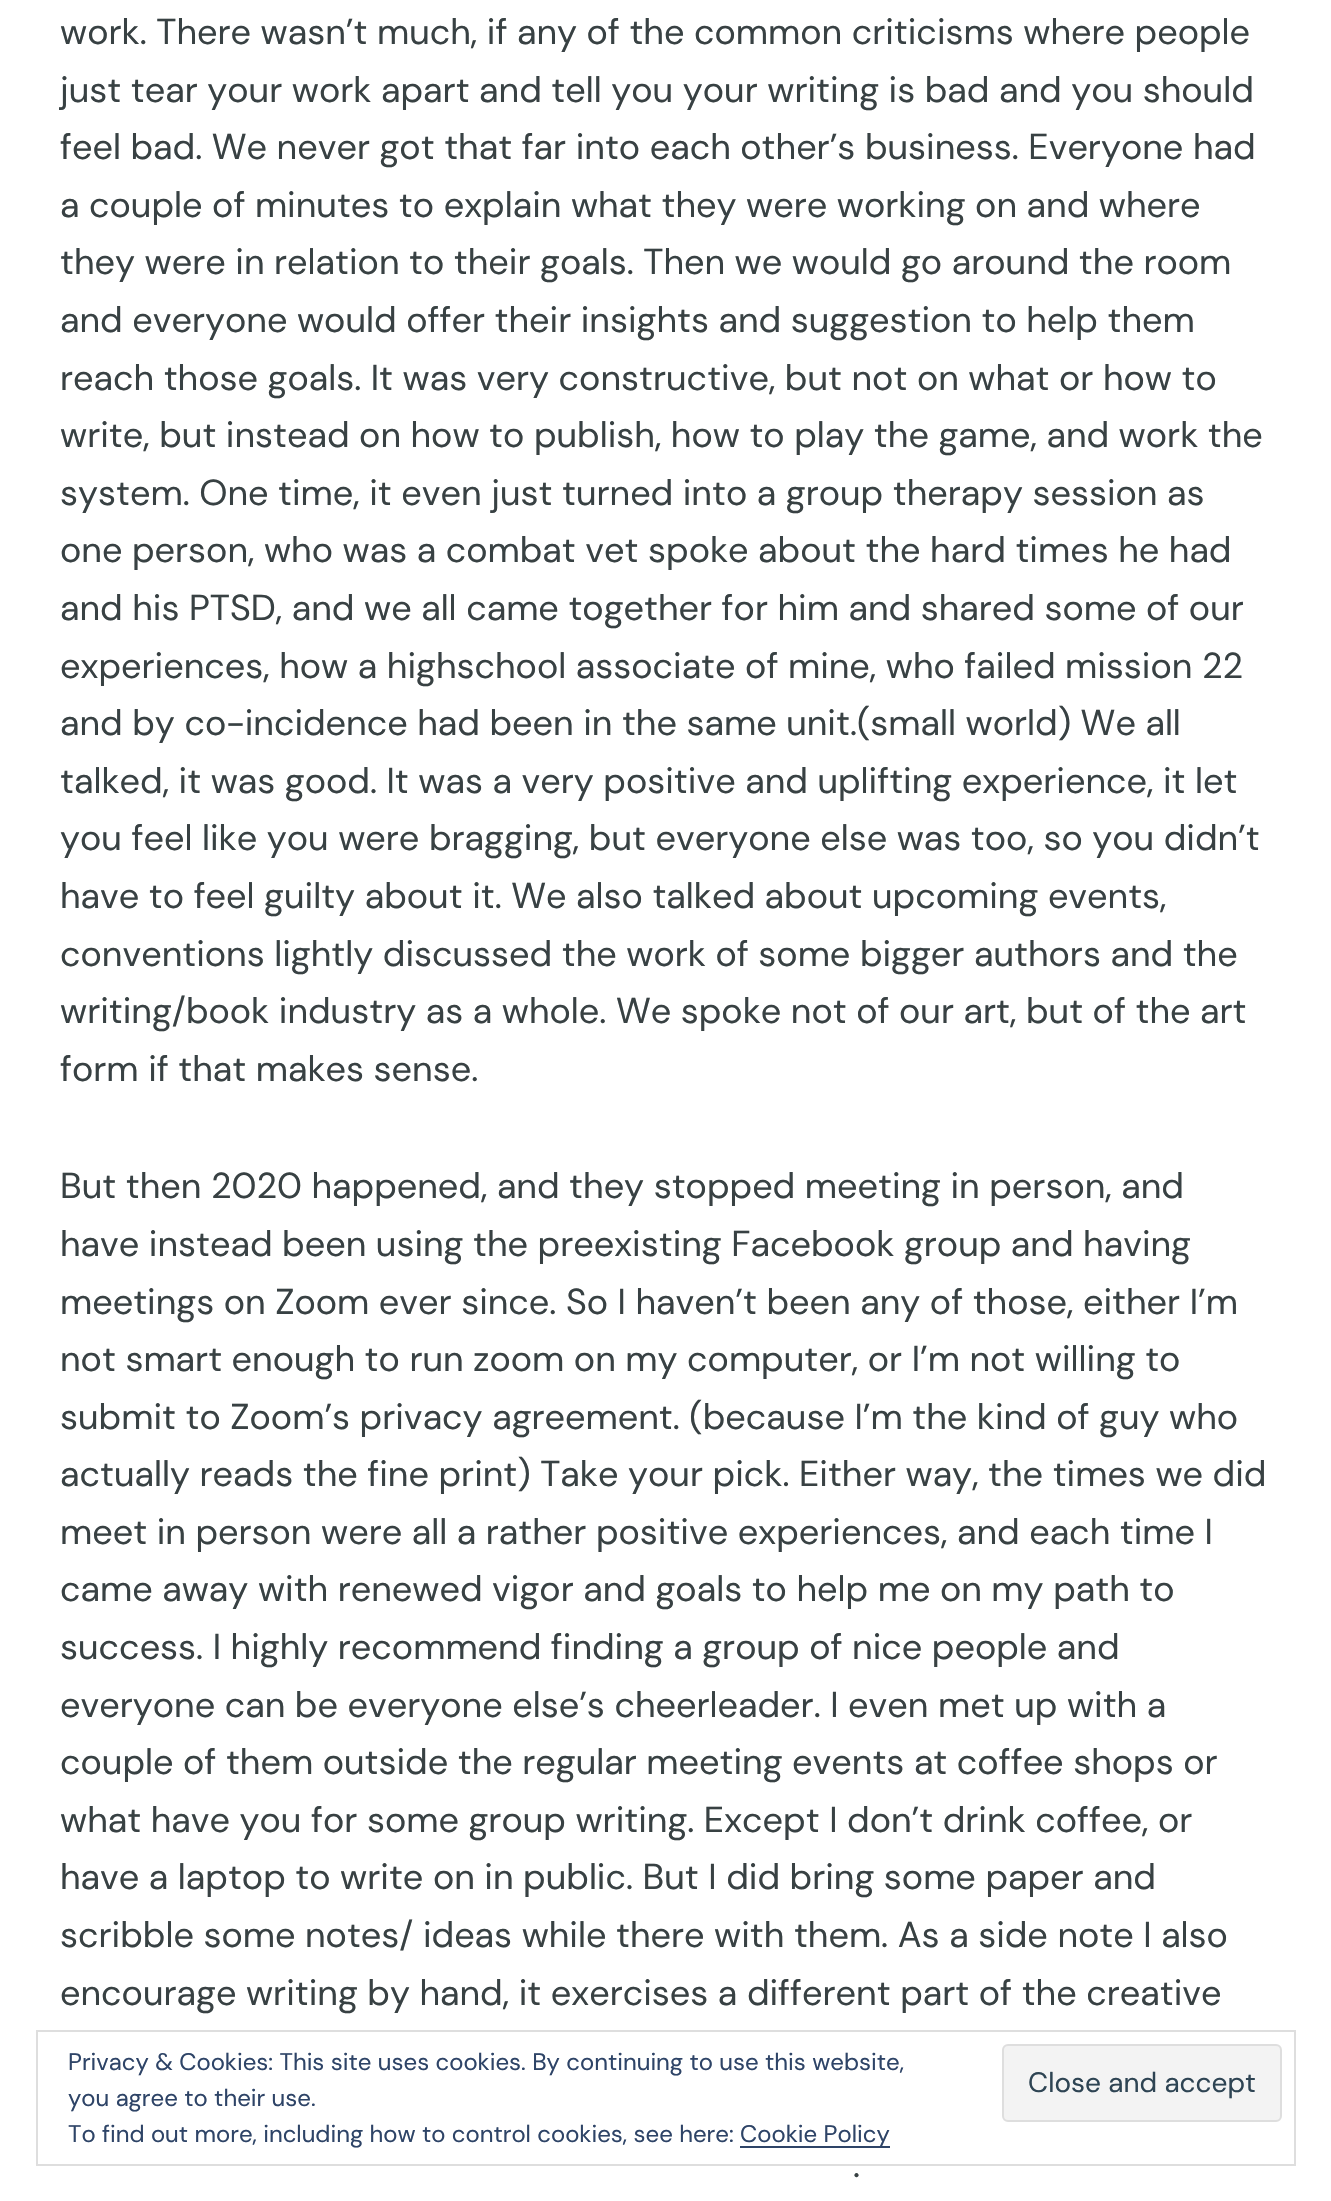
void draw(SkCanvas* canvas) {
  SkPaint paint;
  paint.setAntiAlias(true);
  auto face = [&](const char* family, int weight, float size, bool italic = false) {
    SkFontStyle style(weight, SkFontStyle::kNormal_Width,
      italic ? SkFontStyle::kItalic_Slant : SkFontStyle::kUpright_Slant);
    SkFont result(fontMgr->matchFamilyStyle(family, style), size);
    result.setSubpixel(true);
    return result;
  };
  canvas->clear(0xffffffff);
  paint.setStroke(true);
  paint.setStrokeWidth(2);
  paint.setColor(0xffdedede);
  canvas->drawRect(SkRect::MakeXYWH(37, 2031, 1258, 134), paint);
  paint.setStroke(false);
  paint.setColor(0xfff3f3f3);
  canvas->drawRoundRect(SkRect::MakeXYWH(1003, 2045, 278, 76), 5, 5, paint);
  paint.setStroke(true);
  paint.setColor(0xffdedede);
  canvas->drawRoundRect(SkRect::MakeXYWH(1003, 2045, 278, 76), 5, 5, paint);
  paint.setStroke(false);
  paint.setColor(0xff2e4467);
  canvas->drawRect(SkRect::MakeXYWH(740, 2146, 150, 2), paint);
  auto f0 = face("DM Sans", 400, 36);
  paint.setColor(0xff384143);
  {
    const struct { const char* s; float x, y; } items[] = {
      {"work. There wasn’t much, if any of the common criticisms where people", 60, 44},
      {"just tear your work apart and tell you your writing is bad and you should", 60, 102},
      {"feel bad. We never got that far into each other’s business. Everyone had", 60, 159},
      {"a couple of minutes to explain what they were working on and where", 60, 217},
      {"they were in relation to their goals. Then we would go around the room", 60, 274},
      {"and everyone would offer their insights and suggestion to help them", 60, 332},
      {"reach those goals. It was very constructive, but not on what or how to", 60, 390},
      {"write, but instead on how to publish, how to play the game, and work the", 60, 447},
      {"system. One time, it even just turned into a group therapy session as", 60, 505},
      {"one person, who was a combat vet spoke about the hard times he had", 60, 562},
      {"and his PTSD, and we all came together for him and shared some of our", 60, 620},
      {"experiences, how a highschool associate of mine, who failed mission 22", 60, 678},
      {"and by co-incidence had been in the same unit.(small world) We all", 60, 735},
      {"talked, it was good. It was a very positive and uplifting experience, it let", 60, 793},
      {"you feel like you were bragging, but everyone else was too, so you didn’t", 60, 850},
      {"have to feel guilty about it. We also talked about upcoming events,", 60, 908},
      {"conventions lightly discussed the work of some bigger authors and the", 60, 966},
      {"writing/book industry as a whole. We spoke not of our art, but of the art", 60, 1023},
      {"form if that makes sense.", 60, 1081},
      {"But then 2020 happened, and they stopped meeting in person, and", 60, 1198},
      {"have instead been using the preexisting Facebook group and having", 60, 1256},
      {"meetings on Zoom ever since. So I haven’t been any of those, either I’m", 60, 1314},
      {"not smart enough to run zoom on my computer, or I’m not willing to", 60, 1371},
      {"submit to Zoom’s privacy agreement. (because I’m the kind of guy who", 60, 1429},
      {"actually reads the fine print) Take your pick. Either way, the times we did", 60, 1486},
      {"meet in person were all a rather positive experiences, and each time I", 60, 1544},
      {"came away with renewed vigor and goals to help me on my path to", 60, 1601},
      {"success. I highly recommend finding a group of nice people and", 60, 1659},
      {"everyone can be everyone else’s cheerleader. I even met up with a", 60, 1717},
      {"couple of them outside the regular meeting events at coffee shops or", 60, 1774},
      {"what have you for some group writing. Except I don’t drink coffee, or", 60, 1832},
      {"have a laptop to write on in public. But I did bring some paper and", 60, 1889},
      {"scribble some notes/ ideas while there with them. As a side note I also", 60, 1947},
      {"encourage writing by hand, it exercises a different part of the creative", 60, 2005},
      {".", 853, 2177},
    };
    for (auto [s, x, y] : items) {
      canvas->drawString(s, x, y, f0, paint);
    }
  }
  auto f1 = face("DM Sans", 400, 24);
  paint.setColor(0xff2e4467);
  canvas->drawString("Privacy & Cookies: This site uses cookies. By continuing to use this website,", 68, 2070, f1, paint);
  canvas->drawString("you agree to their use.", 68, 2106, f1, paint);
  auto f2 = face("DM Sans", 400, 28);
  paint.setColor(0xff2e4453);
  canvas->drawString("Close and accept", 1028, 2092, f2, paint);
  paint.setColor(0xff2e4467);
  canvas->drawString("To find out more, including how to control cookies, see here:", 68, 2142, f1, paint);
  canvas->drawString("Cookie Policy", 740, 2142, f1, paint);
}
